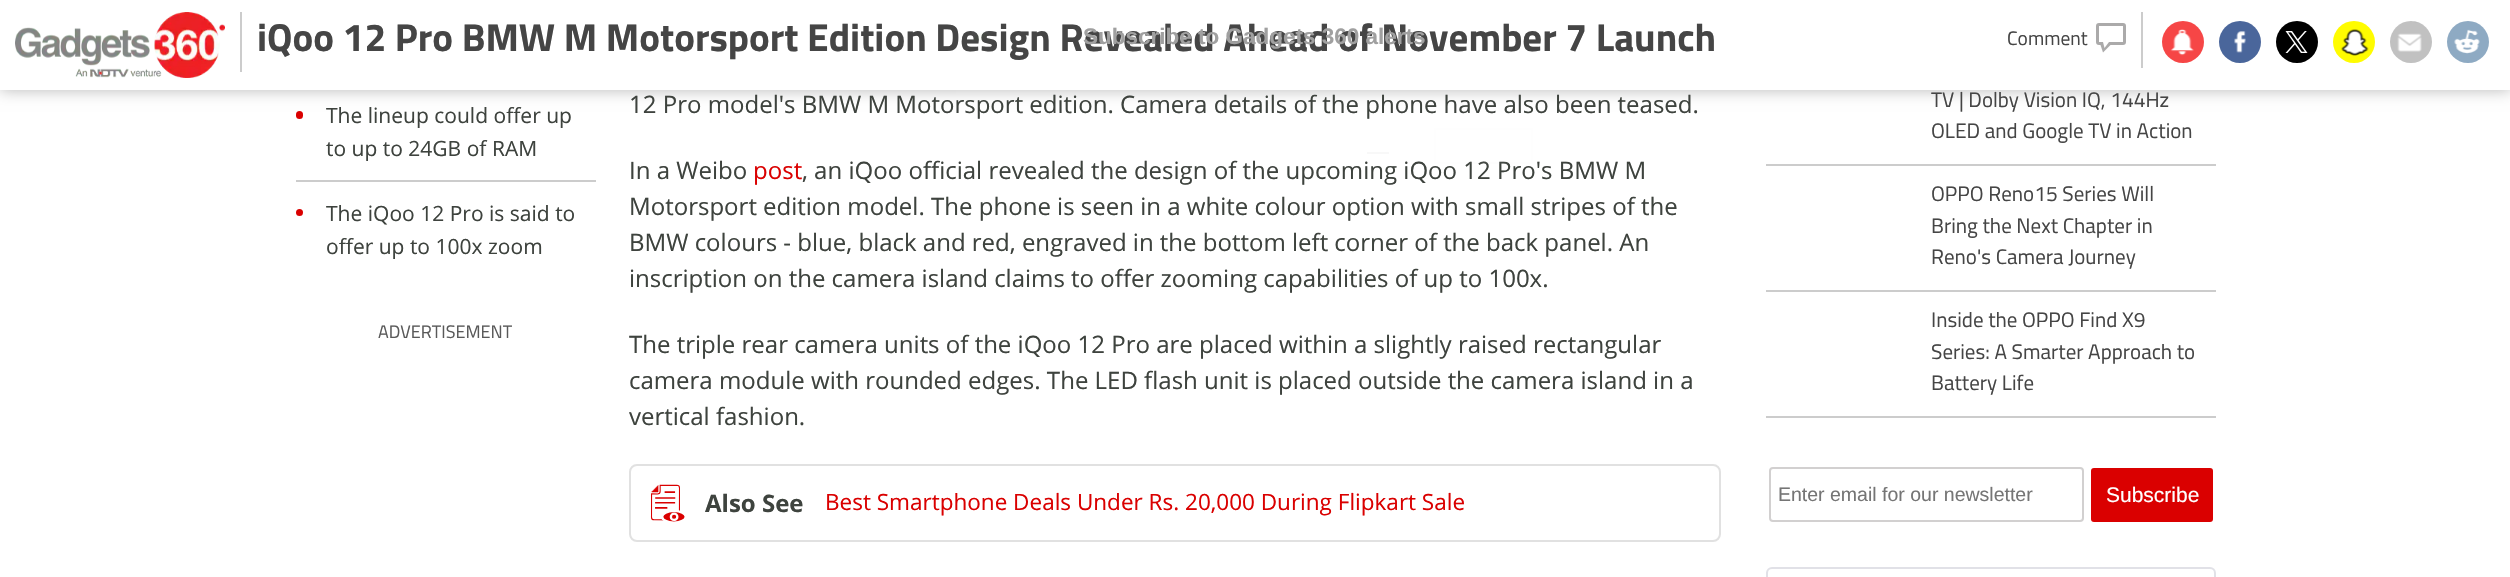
void draw(SkCanvas* canvas) {
  SkPaint paint;
  paint.setAntiAlias(true);
  auto face = [&](const char* family, int weight, float size, bool italic = false) {
    SkFontStyle style(weight, SkFontStyle::kNormal_Width,
      italic ? SkFontStyle::kItalic_Slant : SkFontStyle::kUpright_Slant);
    SkFont result(fontMgr->matchFamilyStyle(family, style), size);
    result.setSubpixel(true);
    return result;
  };
  auto paste = [&](const char* path, float x, float y, float w, float h) {
    auto image = SkImages::DeferredFromEncodedData(SkData::MakeFromFileName(path));
    canvas->drawImageRect(image, SkRect::MakeXYWH(x, y, w, h), SkSamplingOptions());
  };
  auto shape = [&](const char* data, bool evenOdd = false) {
    SkPath result = *SkParsePath::FromSVGString(data);
    if (evenOdd) result.setFillType(SkPathFillType::kEvenOdd);
    return result;
  };
  canvas->clear(0xffffffff);
  paint.setColor(0xffda0000);
  canvas->drawRoundRect(SkRect::MakeXYWH(296, 111, 7, 8), 3.5f, 3.5f, paint);
  paint.setColor(0x47000000);
  paint.setMaskFilter(SkMaskFilter::MakeBlur(kNormal_SkBlurStyle, 7.5f));
  canvas->drawRect(SkRect::MakeXYWH(0, 0, 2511, 90), paint);
  paint.setMaskFilter(nullptr);
  paint.setColor(0xffffffff);
  canvas->drawRect(SkRect::MakeXYWH(0, 0, 2510, 90), paint);
  paste("img/1.png", 15, 12, 210, 66);
  paint.setColor(0xffcccccc);
  canvas->drawRect(SkRect::MakeXYWH(240, 12, 2, 60), paint);
  canvas->drawRect(SkRect::MakeXYWH(2141, 12, 2, 56), paint);
  paint.setStroke(true);
  paint.setStrokeWidth(3);
  paint.setColor(0xffabaaaa);
  canvas->drawRoundRect(SkRect::MakeXYWH(2097.5f, 24.5f, 27, 19), 1.5f, 1.5f, paint);
  paint.setStroke(false);
  canvas->drawPath(shape("M2100 43.5H2112L2103 52.5Z"), paint);
  paint.setColor(0xffffffff);
  canvas->drawPath(shape("M2103 42H2109L2104.5 48Z"), paint);
  paint.setColor(0xfff64646);
  canvas->drawCircle(2183, 42, 21, paint);
  paste("img/2.png", 2170, 29, 24, 27);
  paint.setColor(0xff4a669b);
  canvas->drawCircle(2240, 42, 21, paint);
  paste("img/3.png", 2234, 31, 12, 22);
  paint.setColor(0xff000000);
  canvas->drawCircle(2297, 42, 21, paint);
  paste("img/4.png", 2285, 31, 23, 22);
  paint.setColor(0xfffffc00);
  canvas->drawCircle(2354, 42, 21, paint);
  paste("img/5.png", 2341, 29, 28, 27);
  paint.setColor(0xffc1c1c1);
  canvas->drawCircle(2411, 42, 21, paint);
  paste("img/6.png", 2397, 21, 25, 31);
  paint.setColor(0xff8eaac3);
  canvas->drawCircle(2468, 42, 21, paint);
  paste("img/7.png", 2454, 29, 26, 25);
  paint.setColor(0xffcccccc);
  canvas->drawRect(SkRect::MakeXYWH(296, 180, 300, 2), paint);
  paint.setColor(0xffda0000);
  canvas->drawCircle(299.5f, 212.5f, 3.5f, paint);
  paint.setStroke(true);
  paint.setStrokeWidth(2);
  paint.setColor(0xffe1e1e1);
  canvas->drawRoundRect(SkRect::MakeXYWH(630, 465, 1090, 76), 7, 7, paint);
  paste("img/8.png", 650, 484, 35, 38);
  paint.setStroke(false);
  {
    const struct { float x, y, w, h; SkColor color; } items[] = {
      {1766, 164, 450, 2, 0xffcccccc},
      {1766, 290, 450, 2, 0xffcccccc},
      {1766, 416, 450, 2, 0xffcccccc},
    };
    for (auto [x, y, w, h, color] : items) {
      paint.setColor(color);
      canvas->drawRect(SkRect::MakeXYWH(x, y, w, h), paint);
    }
  }
  paint.setStroke(true);
  paint.setColor(0xffd2d0d0);
  canvas->drawRoundRect(SkRect::MakeXYWH(1770, 468, 313, 53), 3, 3, paint);
  paint.setStroke(false);
  paint.setColor(0xffda0000);
  canvas->drawRoundRect(SkRect::MakeXYWH(2091, 468, 122, 54), 3, 3, paint);
  paint.setStroke(true);
  paint.setColor(0xffe1e1e7);
  canvas->drawRoundRect(SkRect::MakeXYWH(1767, 568, 448, 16), 5, 5, paint);
  paint.setStroke(false);
  {
    const struct { float x, y, w, h; SkColor color; } items[] = {
      {956, 23, 600, 162, 0x0affffff},
      {1367, 152, 22, 2, 0xfff8f8f8},
      {1468, 162, 41, 2, 0x0aefefef},
    };
    for (auto [x, y, w, h, color] : items) {
      paint.setColor(color);
      canvas->drawRect(SkRect::MakeXYWH(x, y, w, h), paint);
    }
  }
  auto f0 = face("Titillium", 700, 39);
  paint.setColor(0xff454545);
  canvas->drawString("iQoo 12 Pro BMW M Motorsport Edition Design Revealed Ahead of November 7 Launch", 257, 51, f0, paint);
  auto f1 = face("Titillium", 400, 19.5f);
  canvas->drawString("Comment", 2007, 45, f1, paint);
  auto f2 = face("Open Sans", 400, 21);
  paint.setColor(0xff3e433e);
  {
    const struct { const char* s; float x, y; } items[] = {
      {"The lineup could offer up", 326, 123},
      {"to up to 24GB of RAM", 326, 156},
      {"The iQoo 12 Pro is said to", 326, 221},
      {"offer up to 100x zoom", 326, 254},
    };
    for (auto [s, x, y] : items) {
      canvas->drawString(s, x, y, f2, paint);
    }
  }
  auto f3 = face("Titillium", 400, 18);
  paint.setColor(0xff595959);
  canvas->drawString("ADVERTISEMENT", 378, 338, f3, paint);
  auto f4 = face("Open Sans", 400, 24);
  paint.setColor(0xff3e433e);
  canvas->drawString("12 Pro model's BMW M Motorsport edition. Camera details of the phone have also been teased.", 629, 113, f4, paint);
  canvas->drawString("In a Weibo", 629, 179, f4, paint);
  paint.setColor(0xffda0000);
  canvas->drawString("post", 753, 179, f4, paint);
  paint.setColor(0xff3e433e);
  {
    const struct { const char* s; float x, y; } items[] = {
      {", an iQoo official revealed the design of the upcoming iQoo 12 Pro's BMW M", 802, 179},
      {"Motorsport edition model. The phone is seen in a white colour option with small stripes of the", 629, 215},
      {"BMW colours - blue, black and red, engraved in the bottom left corner of the back panel. An", 629, 251},
      {"inscription on the camera island claims to offer zooming capabilities of up to 100x.", 629, 287},
      {"The triple rear camera units of the iQoo 12 Pro are placed within a slightly raised rectangular", 629, 353},
      {"camera module with rounded edges. The LED flash unit is placed outside the camera island in a", 629, 389},
      {"vertical fashion.", 629, 425},
    };
    for (auto [s, x, y] : items) {
      canvas->drawString(s, x, y, f4, paint);
    }
  }
  auto f5 = face("Open Sans", 700, 24);
  canvas->drawString("Also See", 705, 512, f5, paint);
  auto f6 = face("Open Sans", 400, 22.5f);
  paint.setColor(0xffda0000);
  canvas->drawString("Best Smartphone Deals Under Rs. 20,000 During Flipkart Sale", 825, 510, f6, paint);
  auto f7 = face("Titillium", 400, 21);
  paint.setColor(0xff454545);
  {
    const struct { const char* s; float x, y; } items[] = {
      {"TV | Dolby Vision IQ, 144Hz", 1931, 107},
      {"OLED and Google TV in Action", 1931, 138},
      {"OPPO Reno15 Series Will", 1931, 201},
      {"Bring the Next Chapter in", 1931, 233},
      {"Reno's Camera Journey", 1931, 264},
      {"Inside the OPPO Find X9", 1931, 327},
      {"Series: A Smarter Approach to", 1931, 359},
      {"Battery Life", 1931, 390},
    };
    for (auto [s, x, y] : items) {
      canvas->drawString(s, x, y, f7, paint);
    }
  }
  auto f8 = face("Liberation Sans", 400, 19.5f);
  paint.setColor(0xff757575);
  canvas->drawString("Enter email for our newsletter", 1778, 501, f8, paint);
  auto f9 = face("Liberation Sans", 400, 21);
  paint.setColor(0xffffffff);
  canvas->drawString("Subscribe", 2106, 502, f9, paint);
  paste("img/9.png", 972, 31, 18, 10);
  auto f10 = face("Liberation Sans", 700, 22.5f);
  paint.setColor(0xffa0a0a0);
  canvas->drawString("Subscribe to Gadgets 360 alerts", 1083, 44, f10, paint);
  paint.setStroke(true);
  paint.setColor(0x0ae1e1e7);
  canvas->drawRect(SkRect::MakeXYWH(1435, 129, 97, 34), paint);
}
